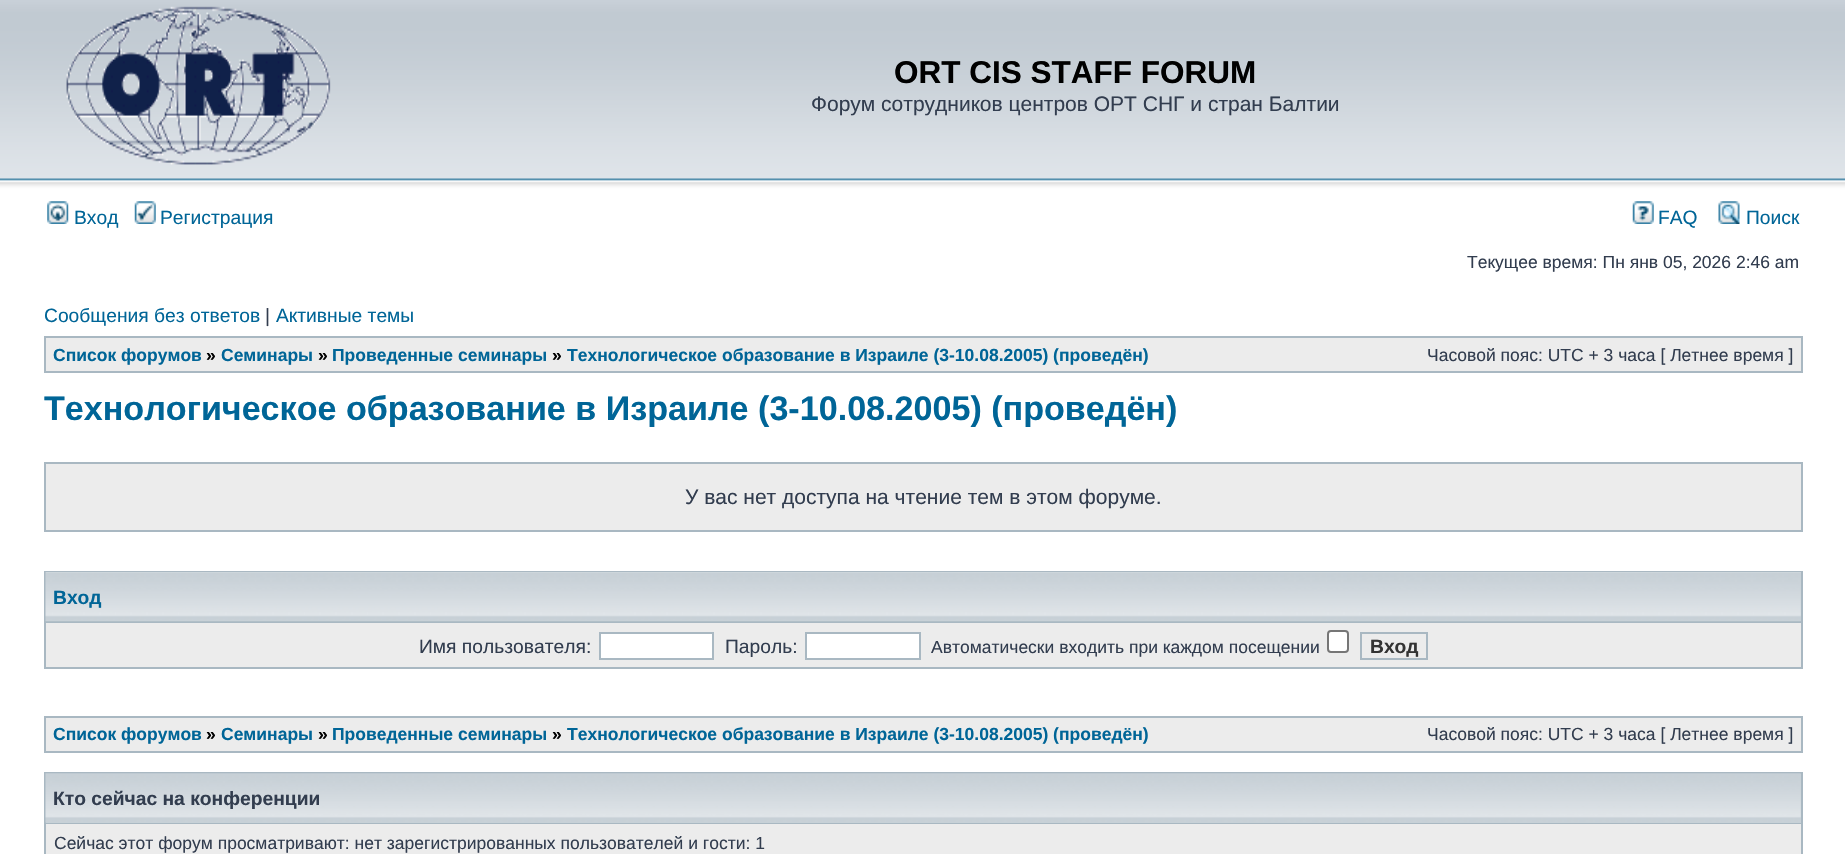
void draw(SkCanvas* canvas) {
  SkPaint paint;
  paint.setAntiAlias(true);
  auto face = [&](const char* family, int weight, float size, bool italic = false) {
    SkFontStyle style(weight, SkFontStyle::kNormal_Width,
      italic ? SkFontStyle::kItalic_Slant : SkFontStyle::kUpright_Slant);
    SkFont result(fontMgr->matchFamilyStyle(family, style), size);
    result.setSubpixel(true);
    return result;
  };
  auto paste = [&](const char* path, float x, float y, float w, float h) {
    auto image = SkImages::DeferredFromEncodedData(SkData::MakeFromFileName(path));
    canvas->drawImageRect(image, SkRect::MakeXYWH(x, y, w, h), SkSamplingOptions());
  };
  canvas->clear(0xffffffff);
  paste("img/1.png", 0, 0, 1845, 198);
  paste("img/2.png", 66, 6, 265, 159);
  paste("img/3.png", 47, 201, 22, 23);
  paste("img/4.png", 134, 201, 22, 23);
  paste("img/5.png", 1632, 201, 22, 23);
  paste("img/6.png", 1718, 201, 22, 23);
  {
    const struct { float x, y, w, h; SkColor color; } items[] = {
      {44, 336, 1759, 37, 0xffa9b8c2},
      {46, 338, 1755, 33, 0xffececec},
      {44, 462, 1759, 70, 0xffa9b8c2},
      {46, 464, 1755, 66, 0xffececec},
      {44, 571, 1759, 98, 0xffa9b8c2},
      {46, 572, 1755, 49, 0xffc7d0d7},
    };
    for (auto [x, y, w, h, color] : items) {
      paint.setColor(color);
      canvas->drawRect(SkRect::MakeXYWH(x, y, w, h), paint);
    }
  }
  paste("img/7.png", 45, 572, 1756, 50);
  paint.setColor(0xffececec);
  canvas->drawRect(SkRect::MakeXYWH(46, 623, 1755, 44), paint);
  paint.setColor(0xffffffff);
  canvas->drawRect(SkRect::MakeXYWH(600, 633, 113, 26), paint);
  paint.setStroke(true);
  paint.setStrokeWidth(2);
  paint.setColor(0xffa9b8c2);
  canvas->drawRect(SkRect::MakeXYWH(600, 633, 113, 26), paint);
  paint.setStroke(false);
  paint.setColor(0xffffffff);
  canvas->drawRect(SkRect::MakeXYWH(806, 633, 114, 26), paint);
  paint.setStroke(true);
  paint.setColor(0xffa9b8c2);
  canvas->drawRect(SkRect::MakeXYWH(806, 633, 114, 26), paint);
  paint.setStroke(false);
  paint.setColor(0xffffffff);
  canvas->drawRoundRect(SkRect::MakeXYWH(1328, 631, 20, 21), 3, 3, paint);
  paint.setStroke(true);
  paint.setColor(0xff767676);
  canvas->drawRoundRect(SkRect::MakeXYWH(1328, 631, 20, 21), 3, 3, paint);
  paint.setColor(0xffa9b8c2);
  canvas->drawRect(SkRect::MakeXYWH(1361, 633, 66, 26), paint);
  paint.setStroke(false);
  {
    const struct { float x, y, w, h; SkColor color; } items[] = {
      {44, 716, 1759, 37, 0xffa9b8c2},
      {46, 718, 1755, 33, 0xffececec},
      {44, 772, 1759, 82, 0xffa9b8c2},
      {46, 774, 1755, 49, 0xffc7d0d7},
    };
    for (auto [x, y, w, h, color] : items) {
      paint.setColor(color);
      canvas->drawRect(SkRect::MakeXYWH(x, y, w, h), paint);
    }
  }
  paste("img/8.png", 45, 773, 1756, 50);
  paint.setColor(0xffececec);
  canvas->drawRect(SkRect::MakeXYWH(46, 824, 1755, 30), paint);
  auto f0 = face("Liberation Sans", 700, 31.5f);
  paint.setColor(0xff000000);
  canvas->drawString("ORT CIS STAFF FORUM", 894, 83, f0, paint);
  auto f1 = face("Liberation Sans", 400, 21);
  paint.setColor(0xff323d4f);
  canvas->drawString("Форум сотрудников центров ОРТ СНГ и стран Балтии", 811, 111, f1, paint);
  auto f2 = face("Liberation Sans", 400, 19.25f);
  paint.setColor(0xff006597);
  {
    const struct { const char* s; float x, y; } items[] = {
      {"Вход", 74, 224},
      {"Регистрация", 160, 224},
      {"FAQ", 1658, 224},
      {"Поиск", 1746, 224},
    };
    for (auto [s, x, y] : items) {
      canvas->drawString(s, x, y, f2, paint);
    }
  }
  auto f3 = face("Liberation Sans", 400, 17.5f);
  paint.setColor(0xff323d4f);
  canvas->drawString("Текущее время: Пн янв 05, 2026 2:46 am", 1467, 268, f3, paint);
  paint.setColor(0xff006597);
  canvas->drawString("Сообщения без ответов", 44, 322, f2, paint);
  paint.setColor(0xff323d4f);
  canvas->drawString("|", 265, 322, f2, paint);
  paint.setColor(0xff006597);
  canvas->drawString("Активные темы", 276, 322, f2, paint);
  auto f4 = face("Liberation Sans", 700, 17.5f);
  canvas->drawString("Список форумов", 53, 361, f4, paint);
  paint.setColor(0xff000000);
  canvas->drawString("»", 206, 361, f4, paint);
  paint.setColor(0xff006597);
  canvas->drawString("Семинары", 221, 361, f4, paint);
  paint.setColor(0xff000000);
  canvas->drawString("»", 318, 361, f4, paint);
  paint.setColor(0xff006597);
  canvas->drawString("Проведенные семинары", 332, 361, f4, paint);
  paint.setColor(0xff000000);
  canvas->drawString("»", 552, 361, f4, paint);
  paint.setColor(0xff006597);
  canvas->drawString("Технологическое образование в Израиле (3-10.08.2005) (проведён)", 567, 361, f4, paint);
  paint.setColor(0xff323d4f);
  canvas->drawString("Часовой пояс: UTC + 3 часа [ Летнее время ]", 1427, 361, f3, paint);
  auto f5 = face("Liberation Sans", 700, 34.1f);
  paint.setColor(0xff006597);
  canvas->drawString("Технологическое образование в Израиле (3-10.08.2005) (проведён)", 44, 420, f5, paint);
  paint.setColor(0xff323d4f);
  canvas->drawString("У вас нет доступа на чтение тем в этом форуме.", 685, 504, f1, paint);
  auto f6 = face("Liberation Sans", 700, 19.25f);
  paint.setColor(0xff006597);
  canvas->drawString("Вход", 53, 604, f6, paint);
  paint.setColor(0xff323d4f);
  canvas->drawString("Имя пользователя:", 419, 653, f2, paint);
  canvas->drawString("Пароль:", 725, 653, f2, paint);
  canvas->drawString("Автоматически входить при каждом посещении", 931, 653, f3, paint);
  paint.setColor(0xff333333);
  canvas->drawString("Вход", 1370, 653, f6, paint);
  paint.setColor(0xff006597);
  canvas->drawString("Список форумов", 53, 740, f4, paint);
  paint.setColor(0xff000000);
  canvas->drawString("»", 206, 740, f4, paint);
  paint.setColor(0xff006597);
  canvas->drawString("Семинары", 221, 740, f4, paint);
  paint.setColor(0xff000000);
  canvas->drawString("»", 318, 740, f4, paint);
  paint.setColor(0xff006597);
  canvas->drawString("Проведенные семинары", 332, 740, f4, paint);
  paint.setColor(0xff000000);
  canvas->drawString("»", 552, 740, f4, paint);
  paint.setColor(0xff006597);
  canvas->drawString("Технологическое образование в Израиле (3-10.08.2005) (проведён)", 567, 740, f4, paint);
  paint.setColor(0xff323d4f);
  canvas->drawString("Часовой пояс: UTC + 3 часа [ Летнее время ]", 1427, 740, f3, paint);
  canvas->drawString("Кто сейчас на конференции", 53, 805, f6, paint);
  canvas->drawString("Сейчас этот форум просматривают: нет зарегистрированных пользователей и гости: 1", 54, 849, f3, paint);
}
